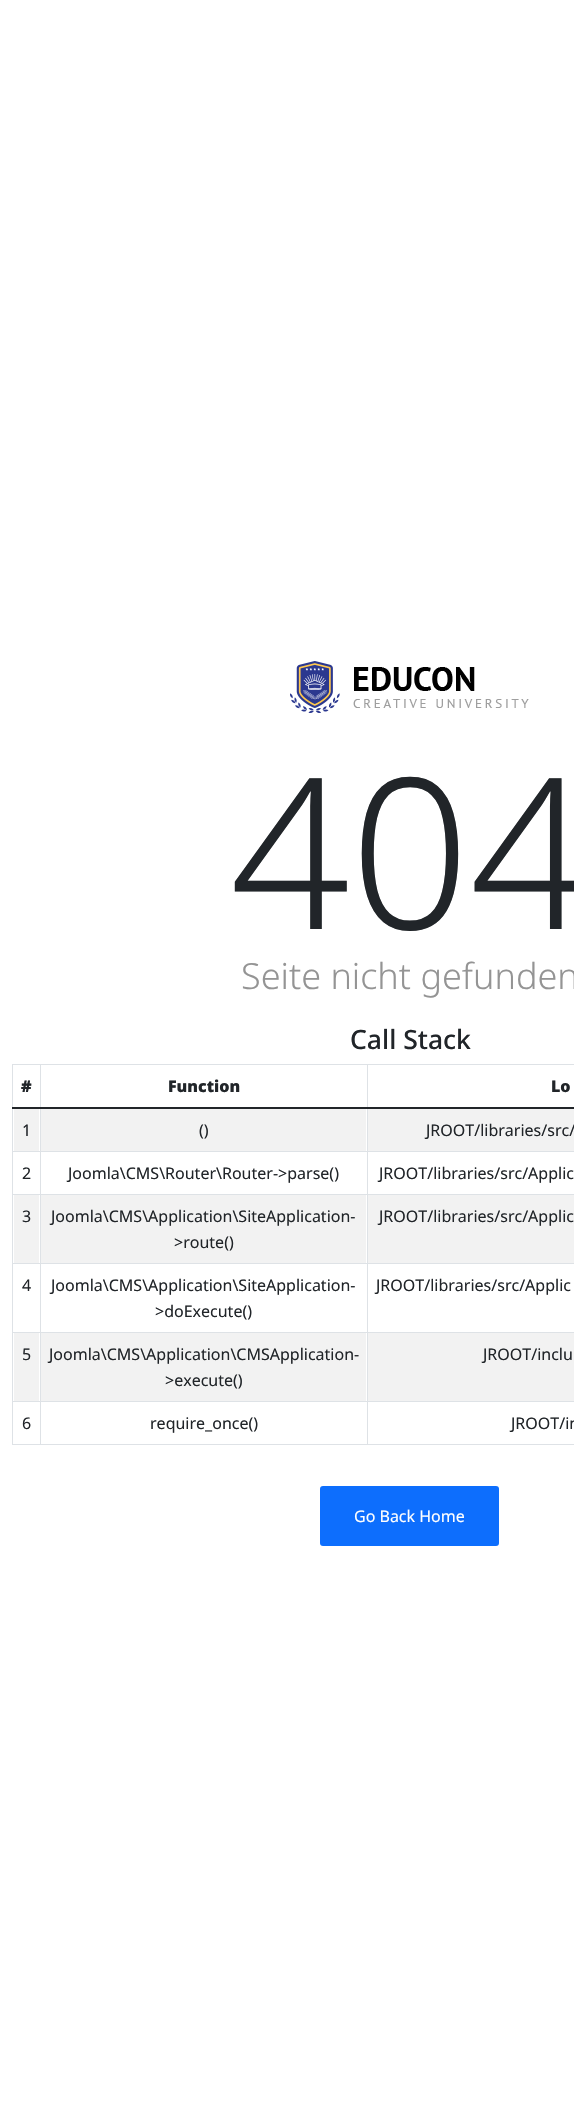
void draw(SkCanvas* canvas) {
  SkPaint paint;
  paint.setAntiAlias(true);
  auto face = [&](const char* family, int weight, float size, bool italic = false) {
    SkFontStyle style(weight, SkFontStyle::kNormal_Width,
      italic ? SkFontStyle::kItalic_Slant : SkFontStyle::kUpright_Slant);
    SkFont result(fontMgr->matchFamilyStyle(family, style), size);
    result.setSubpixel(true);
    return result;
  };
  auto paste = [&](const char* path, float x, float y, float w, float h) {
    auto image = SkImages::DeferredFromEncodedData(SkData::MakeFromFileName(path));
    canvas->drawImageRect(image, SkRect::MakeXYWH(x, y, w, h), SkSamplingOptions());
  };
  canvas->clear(0xffffffff);
  paste("img/1.png", 290, 661, 239, 52);
  {
    const struct { float x, y, w, h; SkColor color; } items[] = {
      {12, 1064, 562, 1, 0xffdee2e6},
      {12, 1151, 562, 1, 0xffdee2e6},
      {12, 1194, 562, 1, 0xffdee2e6},
      {12, 1263, 562, 1, 0xffdee2e6},
      {12, 1332, 562, 1, 0xffdee2e6},
      {12, 1401, 562, 1, 0xffdee2e6},
      {12, 1444, 562, 1, 0xffdee2e6},
      {12, 1064, 1, 381, 0xffdee2e6},
      {40, 1064, 1, 381, 0xffdee2e6},
      {367, 1064, 1, 381, 0xffdee2e6},
      {12, 1107, 562, 2, 0xff212529},
      {14, 1109, 25, 42, 0xfff2f2f2},
      {41, 1109, 325, 42, 0xfff2f2f2},
      {368, 1109, 206, 42, 0xfff2f2f2},
      {14, 1195, 25, 68, 0xfff2f2f2},
      {41, 1195, 325, 68, 0xfff2f2f2},
      {368, 1195, 206, 68, 0xfff2f2f2},
      {14, 1333, 25, 68, 0xfff2f2f2},
      {41, 1333, 325, 68, 0xfff2f2f2},
      {368, 1333, 206, 68, 0xfff2f2f2},
    };
    for (auto [x, y, w, h, color] : items) {
      paint.setColor(color);
      canvas->drawRect(SkRect::MakeXYWH(x, y, w, h), paint);
    }
  }
  paint.setColor(0xff0d6efd);
  canvas->drawRoundRect(SkRect::MakeXYWH(320, 1486, 179, 60), 3, 3, paint);
  auto f0 = face("Noto Sans", 300, 210);
  paint.setColor(0xff212529);
  canvas->drawString("404", 230, 929, f0, paint);
  auto f1 = face("Noto Sans", 300, 36);
  paint.setColor(0xff949494);
  canvas->drawString("Seite nicht gefunden", 241, 989, f1, paint);
  auto f2 = face("Noto Sans", 500, 26.5f);
  paint.setColor(0xff212529);
  canvas->drawString("Call Stack", 350, 1049, f2, paint);
  auto f3 = face("Noto Sans", 900, 16);
  {
    const struct { const char* s; float x, y; } items[] = {
      {"#", 21, 1092},
      {"Function", 168, 1092},
      {"Lo", 551, 1092},
    };
    for (auto [s, x, y] : items) {
      canvas->drawString(s, x, y, f3, paint);
    }
  }
  auto f4 = face("Noto Sans", 400, 16);
  {
    const struct { const char* s; float x, y; } items[] = {
      {"1", 22, 1136},
      {"()", 199, 1136},
      {"JROOT/libraries/src/", 426, 1136},
      {"2", 22, 1179},
      {"Joomla\\CMS\\Router\\Router->parse()", 68, 1179},
      {"JROOT/libraries/src/Applic", 379, 1179},
      {"3", 22, 1222},
      {"Joomla\\CMS\\Application\\SiteApplication-", 51, 1222},
      {">route()", 174, 1248},
      {"JROOT/libraries/src/Applic", 379, 1222},
      {"4", 22, 1291},
      {"Joomla\\CMS\\Application\\SiteApplication-", 51, 1291},
      {">doExecute()", 155, 1317},
      {"JROOT/libraries/src/Applic", 376, 1291},
      {"5", 22, 1360},
      {"Joomla\\CMS\\Application\\CMSApplication-", 49, 1360},
      {">execute()", 165, 1386},
      {"JROOT/inclu", 483, 1360},
      {"6", 22, 1429},
      {"require_once()", 150, 1429},
      {"JROOT/in", 511, 1429},
    };
    for (auto [s, x, y] : items) {
      canvas->drawString(s, x, y, f4, paint);
    }
  }
  paint.setColor(0xffffffff);
  canvas->drawString("Go Back Home", 354, 1522, f4, paint);
}
